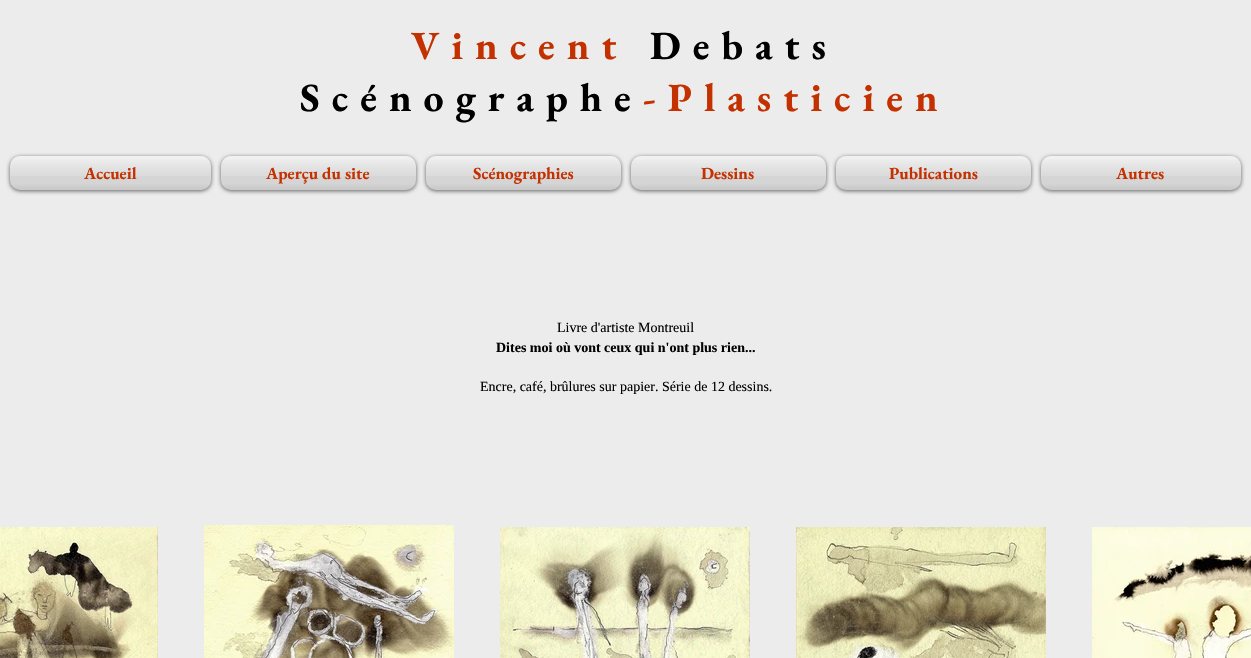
void draw(SkCanvas* canvas) {
  SkPaint paint;
  paint.setAntiAlias(true);
  auto face = [&](const char* family, int weight, float size, bool italic = false) {
    SkFontStyle style(weight, SkFontStyle::kNormal_Width,
      italic ? SkFontStyle::kItalic_Slant : SkFontStyle::kUpright_Slant);
    SkFont result(fontMgr->matchFamilyStyle(family, style), size);
    result.setSubpixel(true);
    return result;
  };
  auto writeSpaced = [&](const char* s, float x, float y, const SkFont& font, const SkPaint& ink, float letter, float word) {
    std::vector<SkGlyphID> glyphs(font.countText(s, strlen(s), SkTextEncoding::kUTF8));
    std::vector<float> xs(glyphs.size());
    font.textToGlyphs(s, strlen(s), SkTextEncoding::kUTF8, glyphs);
    font.getXPos(glyphs, xs, x);
    float extra = 0;
    for (size_t i = 0; i < glyphs.size(); i++) {
      xs[i] += extra;
      extra += letter + word * (glyphs[i] == font.unicharToGlyph(' '));
    }
    canvas->drawTextBlob(SkTextBlob::MakeFromPosHGlyphs(glyphs, xs, y, font), 0, 0, ink);
  };
  auto paste = [&](const char* path, float x, float y, float w, float h) {
    auto image = SkImages::DeferredFromEncodedData(SkData::MakeFromFileName(path));
    canvas->drawImageRect(image, SkRect::MakeXYWH(x, y, w, h), SkSamplingOptions());
  };
  canvas->clear(0xffececec);
  paint.setColor(0x99000000);
  paint.setMaskFilter(SkMaskFilter::MakeBlur(kNormal_SkBlurStyle, 2));
  canvas->drawRoundRect(SkRect::MakeXYWH(10, 157, 201, 34), 10, 10, paint);
  paint.setMaskFilter(nullptr);
  paint.setColor(0xffececec);
  canvas->drawRoundRect(SkRect::MakeXYWH(10, 156, 201, 34), 10, 10, paint);
  paste("img/1.png", 10, 156, 201, 20);
  paste("img/2.png", 10, 156, 201, 34);
  paint.setColor(0x99000000);
  paint.setMaskFilter(SkMaskFilter::MakeBlur(kNormal_SkBlurStyle, 2));
  canvas->drawRoundRect(SkRect::MakeXYWH(221, 157, 195, 34), 10, 10, paint);
  paint.setMaskFilter(nullptr);
  paint.setColor(0xffececec);
  canvas->drawRoundRect(SkRect::MakeXYWH(221, 156, 195, 34), 10, 10, paint);
  paste("img/3.png", 221, 156, 195, 20);
  paste("img/4.png", 221, 156, 195, 34);
  paint.setColor(0x99000000);
  paint.setMaskFilter(SkMaskFilter::MakeBlur(kNormal_SkBlurStyle, 2));
  canvas->drawRoundRect(SkRect::MakeXYWH(426, 157, 195, 34), 10, 10, paint);
  paint.setMaskFilter(nullptr);
  paint.setColor(0xffececec);
  canvas->drawRoundRect(SkRect::MakeXYWH(426, 156, 195, 34), 10, 10, paint);
  paste("img/5.png", 426, 156, 195, 20);
  paste("img/6.png", 426, 156, 195, 34);
  paint.setColor(0x99000000);
  paint.setMaskFilter(SkMaskFilter::MakeBlur(kNormal_SkBlurStyle, 2));
  canvas->drawRoundRect(SkRect::MakeXYWH(631, 157, 195, 34), 10, 10, paint);
  paint.setMaskFilter(nullptr);
  paint.setColor(0xffececec);
  canvas->drawRoundRect(SkRect::MakeXYWH(631, 156, 195, 34), 10, 10, paint);
  paste("img/3.png", 631, 156, 195, 20);
  paste("img/4.png", 631, 156, 195, 34);
  paint.setColor(0x99000000);
  paint.setMaskFilter(SkMaskFilter::MakeBlur(kNormal_SkBlurStyle, 2));
  canvas->drawRoundRect(SkRect::MakeXYWH(836, 157, 195, 34), 10, 10, paint);
  paint.setMaskFilter(nullptr);
  paint.setColor(0xffececec);
  canvas->drawRoundRect(SkRect::MakeXYWH(836, 156, 195, 34), 10, 10, paint);
  paste("img/3.png", 836, 156, 195, 20);
  paste("img/4.png", 836, 156, 195, 34);
  paint.setColor(0x99000000);
  paint.setMaskFilter(SkMaskFilter::MakeBlur(kNormal_SkBlurStyle, 2));
  canvas->drawRoundRect(SkRect::MakeXYWH(1041, 157, 200, 34), 10, 10, paint);
  paint.setMaskFilter(nullptr);
  paint.setColor(0xffececec);
  canvas->drawRoundRect(SkRect::MakeXYWH(1041, 156, 200, 34), 10, 10, paint);
  paste("img/7.png", 1041, 156, 200, 20);
  paste("img/8.png", 1041, 156, 200, 34);
  paste("img/9.png", 0, 527, 158, 131);
  paste("img/10.png", 204, 525, 250, 133);
  paste("img/11.png", 500, 527, 250, 131);
  paste("img/12.png", 796, 527, 250, 131);
  paste("img/13.png", 1092, 527, 159, 131);
  auto f0 = face("EB Garamond", 700, 40);
  paint.setColor(0xffc43100);
  writeSpaced("Vincent", 411, 59, f0, paint, 12, 0);
  paint.setColor(0xff000000);
  writeSpaced("Debats", 650, 59, f0, paint, 12, 0);
  writeSpaced("Scénographe", 300, 111, f0, paint, 12, 0);
  paint.setColor(0xffc43100);
  writeSpaced("-Plasticien", 643, 111, f0, paint, 12, 0);
  auto f1 = face("EB Garamond", 700, 17);
  {
    const struct { const char* s; float x, y; } items[] = {
      {"Accueil", 84, 179},
      {"Aperçu du site", 266, 179},
      {"Scénographies", 473, 179},
      {"Dessins", 701, 179},
      {"Publications", 889, 179},
      {"Autres", 1116, 179},
    };
    for (auto [s, x, y] : items) {
      canvas->drawString(s, x, y, f1, paint);
    }
  }
  auto f2 = face("Liberation Serif", 400, 14);
  paint.setColor(0xff000000);
  canvas->drawString("Livre d'artiste Montreuil", 557, 332, f2, paint);
  auto f3 = face("Liberation Serif", 700, 14);
  canvas->drawString("Dites moi où vont ceux qui n'ont plus rien...", 496, 352, f3, paint);
  canvas->drawString("Encre, café, brûlures sur papier. Série de 12 dessins.", 480, 391, f2, paint);
}
